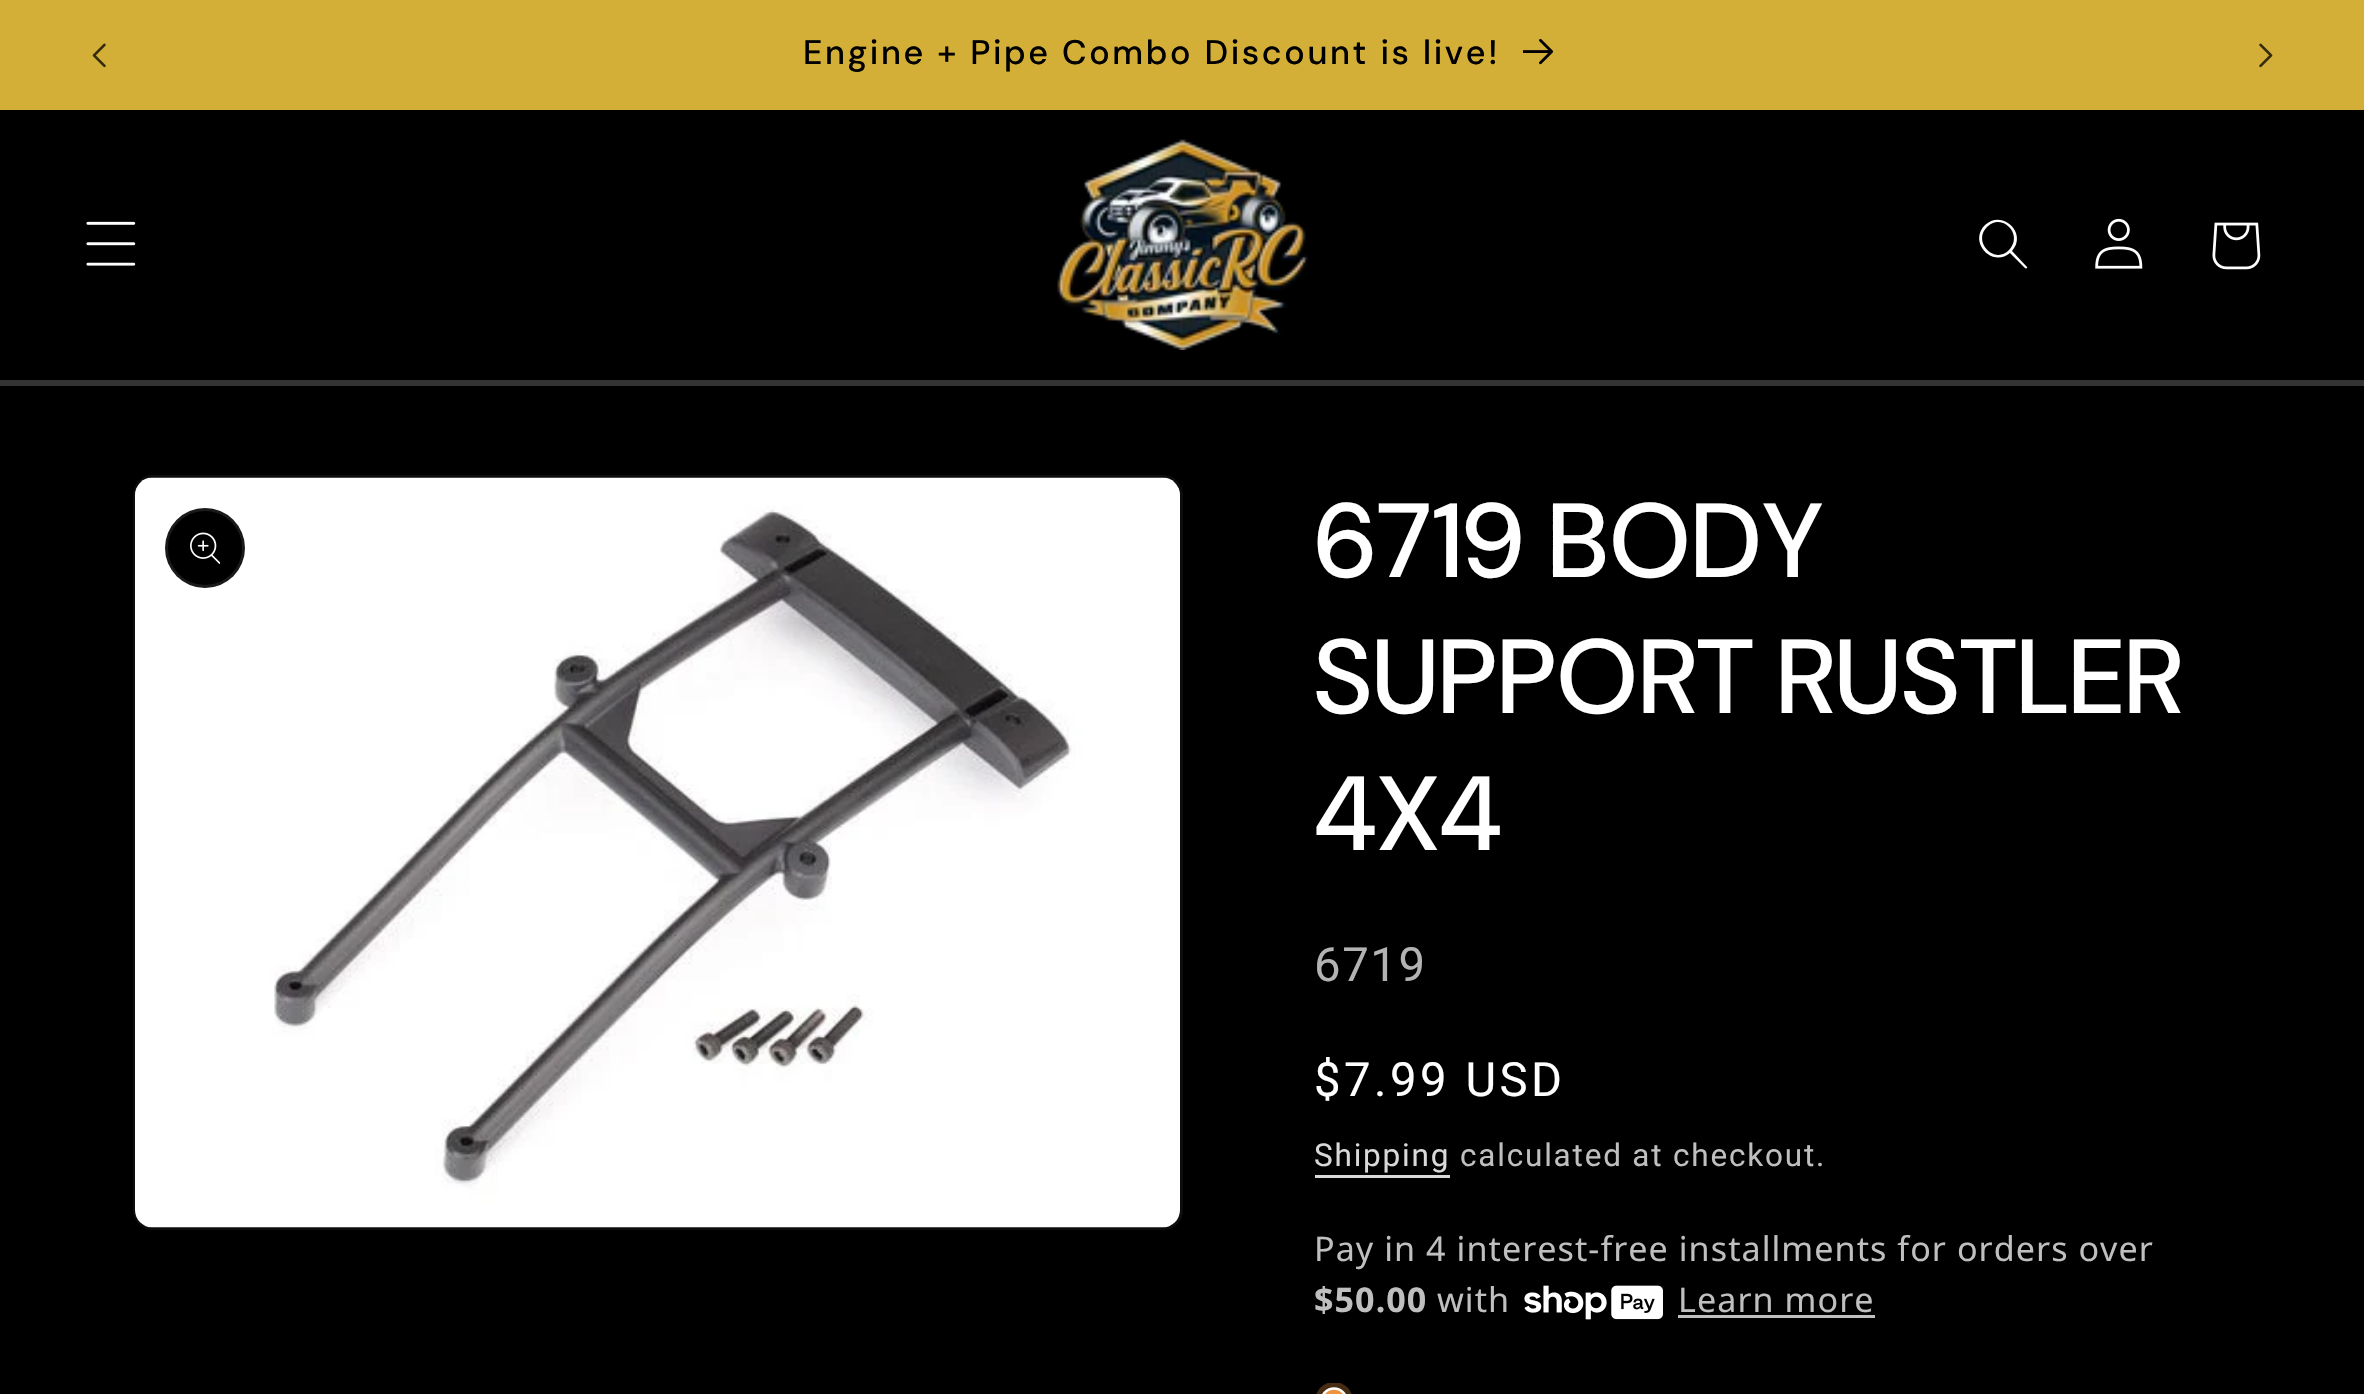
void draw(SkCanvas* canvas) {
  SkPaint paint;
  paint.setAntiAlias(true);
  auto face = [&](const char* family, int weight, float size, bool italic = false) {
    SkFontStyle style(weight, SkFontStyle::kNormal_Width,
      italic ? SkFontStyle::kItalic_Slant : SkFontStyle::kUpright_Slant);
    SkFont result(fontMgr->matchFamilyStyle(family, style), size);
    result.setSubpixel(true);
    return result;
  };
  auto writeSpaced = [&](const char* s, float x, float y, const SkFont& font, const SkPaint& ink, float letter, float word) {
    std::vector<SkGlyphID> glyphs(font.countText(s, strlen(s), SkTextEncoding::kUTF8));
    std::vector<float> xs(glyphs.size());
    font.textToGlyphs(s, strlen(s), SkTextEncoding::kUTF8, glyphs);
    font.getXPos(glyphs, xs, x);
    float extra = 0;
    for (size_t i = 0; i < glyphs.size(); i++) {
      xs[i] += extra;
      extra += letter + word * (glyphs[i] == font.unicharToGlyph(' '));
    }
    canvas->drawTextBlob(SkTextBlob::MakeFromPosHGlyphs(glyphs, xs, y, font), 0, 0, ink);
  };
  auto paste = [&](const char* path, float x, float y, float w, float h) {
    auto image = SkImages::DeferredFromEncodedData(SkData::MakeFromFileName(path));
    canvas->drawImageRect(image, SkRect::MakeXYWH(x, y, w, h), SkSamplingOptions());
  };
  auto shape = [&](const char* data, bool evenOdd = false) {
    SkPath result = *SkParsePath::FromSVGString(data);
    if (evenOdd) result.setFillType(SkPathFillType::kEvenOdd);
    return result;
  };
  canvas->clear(0xff000000);
  paint.setColor(0xffd4af37);
  canvas->drawRect(SkRect::MakeXYWH(0, 0, 2364, 110), paint);
  paste("img/1.png", 92, 43, 14, 25);
  paste("img/2.png", 1523, 38, 31, 27);
  paste("img/3.png", 2259, 43, 14, 25);
  paint.setColor(0xff333333);
  canvas->drawRect(SkRect::MakeXYWH(0, 380, 2364, 6), paint);
  paste("img/4.png", 86, 221, 50, 45);
  paste("img/5.png", 1057, 139, 251, 211);
  paint.setColor(0xffffffff);
  canvas->drawPath(shape("M2009 250C1995 265 1972 242 1987 227C2002 212 2024 235 2009 250M2010 253C1992 268 1968 242 1985 225C2002 209 2028 233 2012 251L2027 267C2028 268 2026 269 2025 268Z", true), paint);
  paste("img/6.png", 2095, 218, 48, 51);
  paste("img/7.png", 2212, 222, 49, 48);
  paint.setStroke(true);
  paint.setStrokeWidth(3);
  paint.setColor(0xff0d0d0d);
  canvas->drawRoundRect(SkRect::MakeXYWH(134.5f, 476.5f, 1047, 752), 18.5f, 18.5f, paint);
  paste("img/8.png", 135, 477, 1045, 751);
  paint.setStroke(false);
  paint.setColor(0xff000000);
  canvas->drawCircle(205, 548, 40, paint);
  paint.setStroke(true);
  paint.setColor(0x1affffff);
  canvas->drawCircle(205, 548, 38.5f, paint);
  paste("img/9.png", 190, 532, 30, 32);
  paint.setStroke(false);
  paint.setColor(0xffd9d9d9);
  canvas->drawRect(SkRect::MakeXYWH(1315, 1175, 135, 3), paint);
  paste("img/10.png", 1524, 1285, 139, 35);
  paint.setColor(0xffbfbfbf);
  canvas->drawRect(SkRect::MakeXYWH(1678, 1315, 197, 3), paint);
  canvas->save();
  canvas->clipRect(SkRect::MakeXYWH(1315, 1383, 38, 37));
  paint.setColor(0xff472c14);
  canvas->drawCircle(1334, 1401, 19, paint);
  canvas->restore();
  paint.setColor(0xffee9441);
  canvas->drawCircle(1334, 1401, 12.5f, paint);
  paint.setStroke(true);
  paint.setStrokeWidth(2.5f);
  paint.setColor(0xffffffff);
  canvas->drawCircle(1334, 1401, 12.5f, paint);
  auto f0 = face("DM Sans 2", 500, 34.1f);
  paint.setStroke(false);
  paint.setColor(0xff000000);
  writeSpaced("Engine + Pipe Combo Discount is live!", 803, 64, f0, paint, 2.6f, 0);
  auto f1 = face("DM Sans", 500, 105);
  paint.setColor(0xffffffff);
  {
    const struct { const char* s; float x, y; } items[] = {
      {"6719 BODY", 1314, 577},
      {"SUPPORT RUSTLER", 1314, 713},
      {"4X4", 1314, 850},
    };
    for (auto [s, x, y] : items) {
      writeSpaced(s, x, y, f1, paint, 1.6f, 0);
    }
  }
  auto f2 = face("Roboto", 400, 47.25f);
  paint.setColor(0xffb3b3b3);
  writeSpaced("6719", 1314, 981, f2, paint, 1.6f, 0);
  paint.setColor(0xffffffff);
  writeSpaced("$7.99 USD", 1314, 1096, f2, paint, 3.5f, 0);
  auto f3 = face("Roboto", 400, 31.5f);
  paint.setColor(0xffd9d9d9);
  writeSpaced("Shipping", 1314, 1166, f3, paint, 1.8f, 0);
  paint.setColor(0xffbfbfbf);
  writeSpaced("calculated at checkout.", 1460, 1166, f3, paint, 1.8f, 0);
  auto f4 = face("Noto Sans", 400, 34.1f);
  writeSpaced("Pay in 4 interest-free installments for orders over", 1314, 1261, f4, paint, 1.05f, 0);
  auto f5 = face("Noto Sans", 700, 34.1f);
  writeSpaced("$50.00", 1314, 1312, f5, paint, 1.05f, 0);
  writeSpaced("with", 1437, 1312, f4, paint, 1.05f, 0);
  writeSpaced("Learn more", 1678, 1312, f4, paint, 1.05f, 0);
}
